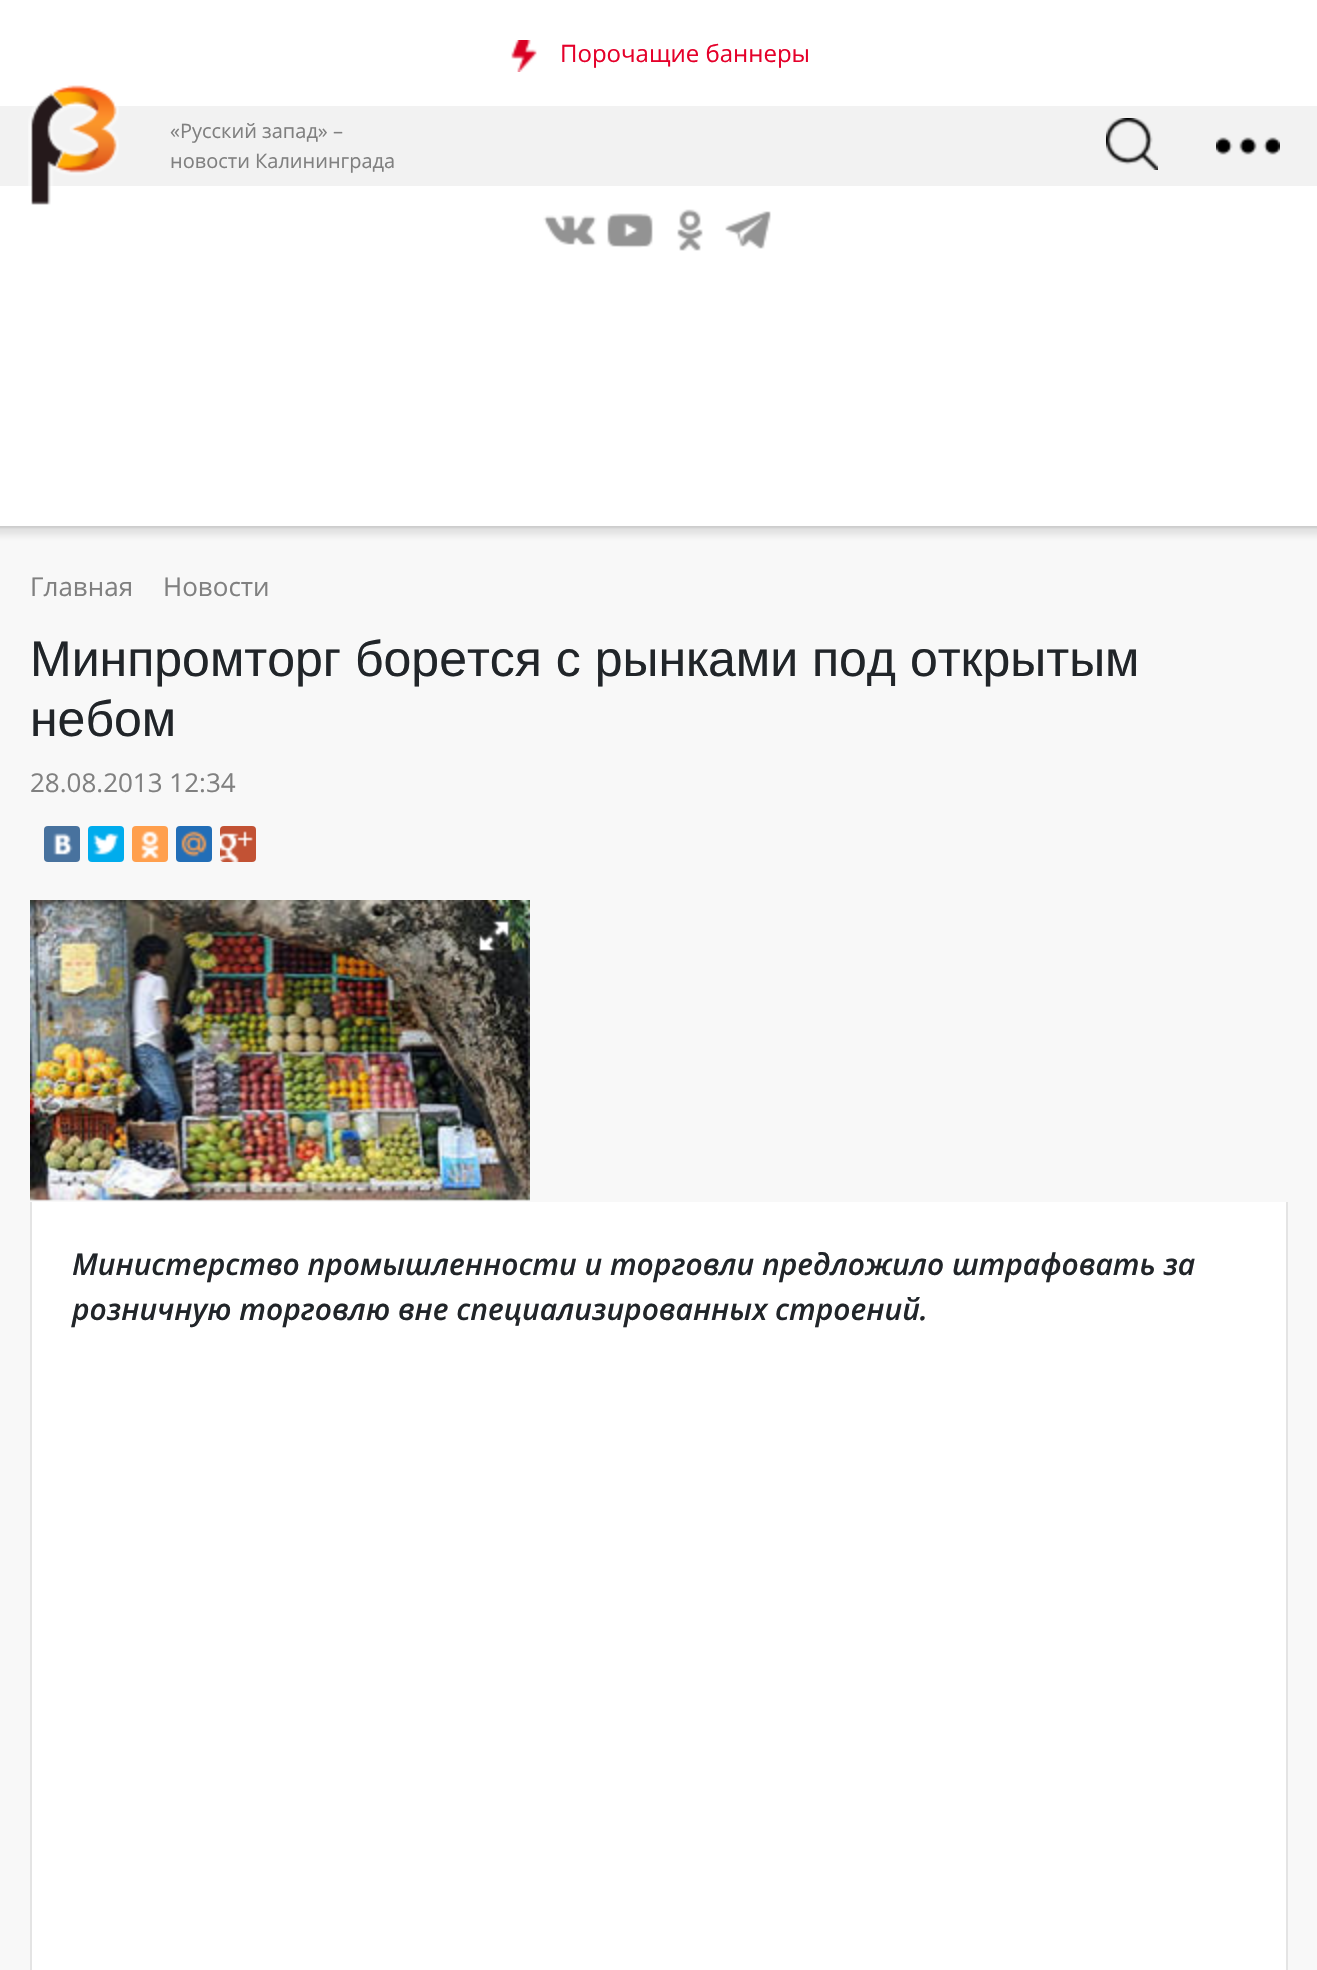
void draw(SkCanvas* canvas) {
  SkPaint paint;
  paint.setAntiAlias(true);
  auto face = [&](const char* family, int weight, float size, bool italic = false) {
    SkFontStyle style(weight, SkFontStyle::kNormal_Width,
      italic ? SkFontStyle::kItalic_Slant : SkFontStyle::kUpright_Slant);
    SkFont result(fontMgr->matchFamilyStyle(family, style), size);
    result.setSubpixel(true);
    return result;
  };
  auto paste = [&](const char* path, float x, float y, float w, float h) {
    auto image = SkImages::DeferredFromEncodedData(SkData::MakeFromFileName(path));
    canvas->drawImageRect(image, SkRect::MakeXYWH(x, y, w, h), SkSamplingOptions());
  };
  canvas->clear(0xfff8f8f8);
  paint.setColor(0xffffffff);
  canvas->drawRect(SkRect::MakeXYWH(0, 0, 1317, 526), paint);
  paste("img/1.png", 511, 40, 26, 32);
  paint.setColor(0xfff2f2f2);
  canvas->drawRect(SkRect::MakeXYWH(0, 106, 1317, 80), paint);
  paste("img/2.png", 28, 85, 91, 120);
  paste("img/3.png", 1106, 118, 52, 52);
  paste("img/4.png", 1216, 137, 64, 18);
  paste("img/5.png", 543, 215, 54, 31);
  paste("img/6.png", 607, 213, 46, 35);
  paste("img/7.png", 677, 209, 26, 42);
  paste("img/8.png", 725, 211, 46, 38);
  paste("img/9.png", 0, 526, 1317, 40);
  paint.setColor(0xff48729e);
  canvas->drawRoundRect(SkRect::MakeXYWH(44, 826, 36, 36), 4, 4, paint);
  paste("img/10.png", 53, 833, 20, 22);
  paint.setColor(0xff00aced);
  canvas->drawRoundRect(SkRect::MakeXYWH(88, 826, 36, 36), 4, 4, paint);
  paste("img/11.png", 93, 833, 26, 22);
  paint.setColor(0xffff9f4d);
  canvas->drawRoundRect(SkRect::MakeXYWH(132, 826, 36, 36), 4, 4, paint);
  paste("img/12.png", 141, 831, 18, 28);
  paint.setColor(0xff226eb7);
  canvas->drawRoundRect(SkRect::MakeXYWH(176, 826, 36, 36), 4, 4, paint);
  paste("img/13.png", 181, 831, 26, 26);
  paint.setColor(0xffc25234);
  canvas->drawRoundRect(SkRect::MakeXYWH(220, 826, 36, 36), 4, 4, paint);
  paste("img/14.png", 220, 831, 33, 31);
  paste("img/15.png", 30, 900, 500, 301);
  paste("img/16.png", 473, 914, 42, 43);
  {
    const struct { float x, y, w, h; SkColor color; } items[] = {
      {32, 1202, 1254, 768, 0xffffffff},
      {1286, 1202, 2, 768, 0xffe4e4e4},
      {30, 1202, 2, 768, 0xffe4e4e4},
    };
    for (auto [x, y, w, h, color] : items) {
      paint.setColor(color);
      canvas->drawRect(SkRect::MakeXYWH(x, y, w, h), paint);
    }
  }
  auto f0 = face("Open Sans", 400, 24);
  paint.setColor(0xffe5002a);
  canvas->drawString("Порочащие баннеры", 560, 62, f0, paint);
  auto f1 = face("Open Sans", 400, 20);
  paint.setColor(0xff808080);
  canvas->drawString("«Русский запад» –", 170, 138, f1, paint);
  canvas->drawString("новости Калининграда", 170, 168, f1, paint);
  auto f2 = face("Open Sans", 400, 26);
  canvas->drawString("Главная", 30, 596, f2, paint);
  canvas->drawString("Новости", 163, 596, f2, paint);
  auto f3 = face("Liberation Sans", 400, 50);
  paint.setColor(0xff212529);
  canvas->drawString("Минпромторг борется с рынками под открытым", 30, 676, f3, paint);
  canvas->drawString("небом", 30, 736, f3, paint);
  paint.setColor(0xff808080);
  canvas->drawString("28.08.2013 12:34", 30, 792, f2, paint);
  auto f4 = face("Open Sans", 600, 30, true);
  paint.setColor(0xff212529);
  canvas->drawString("Министерство промышленности и торговли предложило штрафовать за", 72, 1275, f4, paint);
  canvas->drawString("розничную торговлю вне специализированных строений.", 72, 1320, f4, paint);
}
